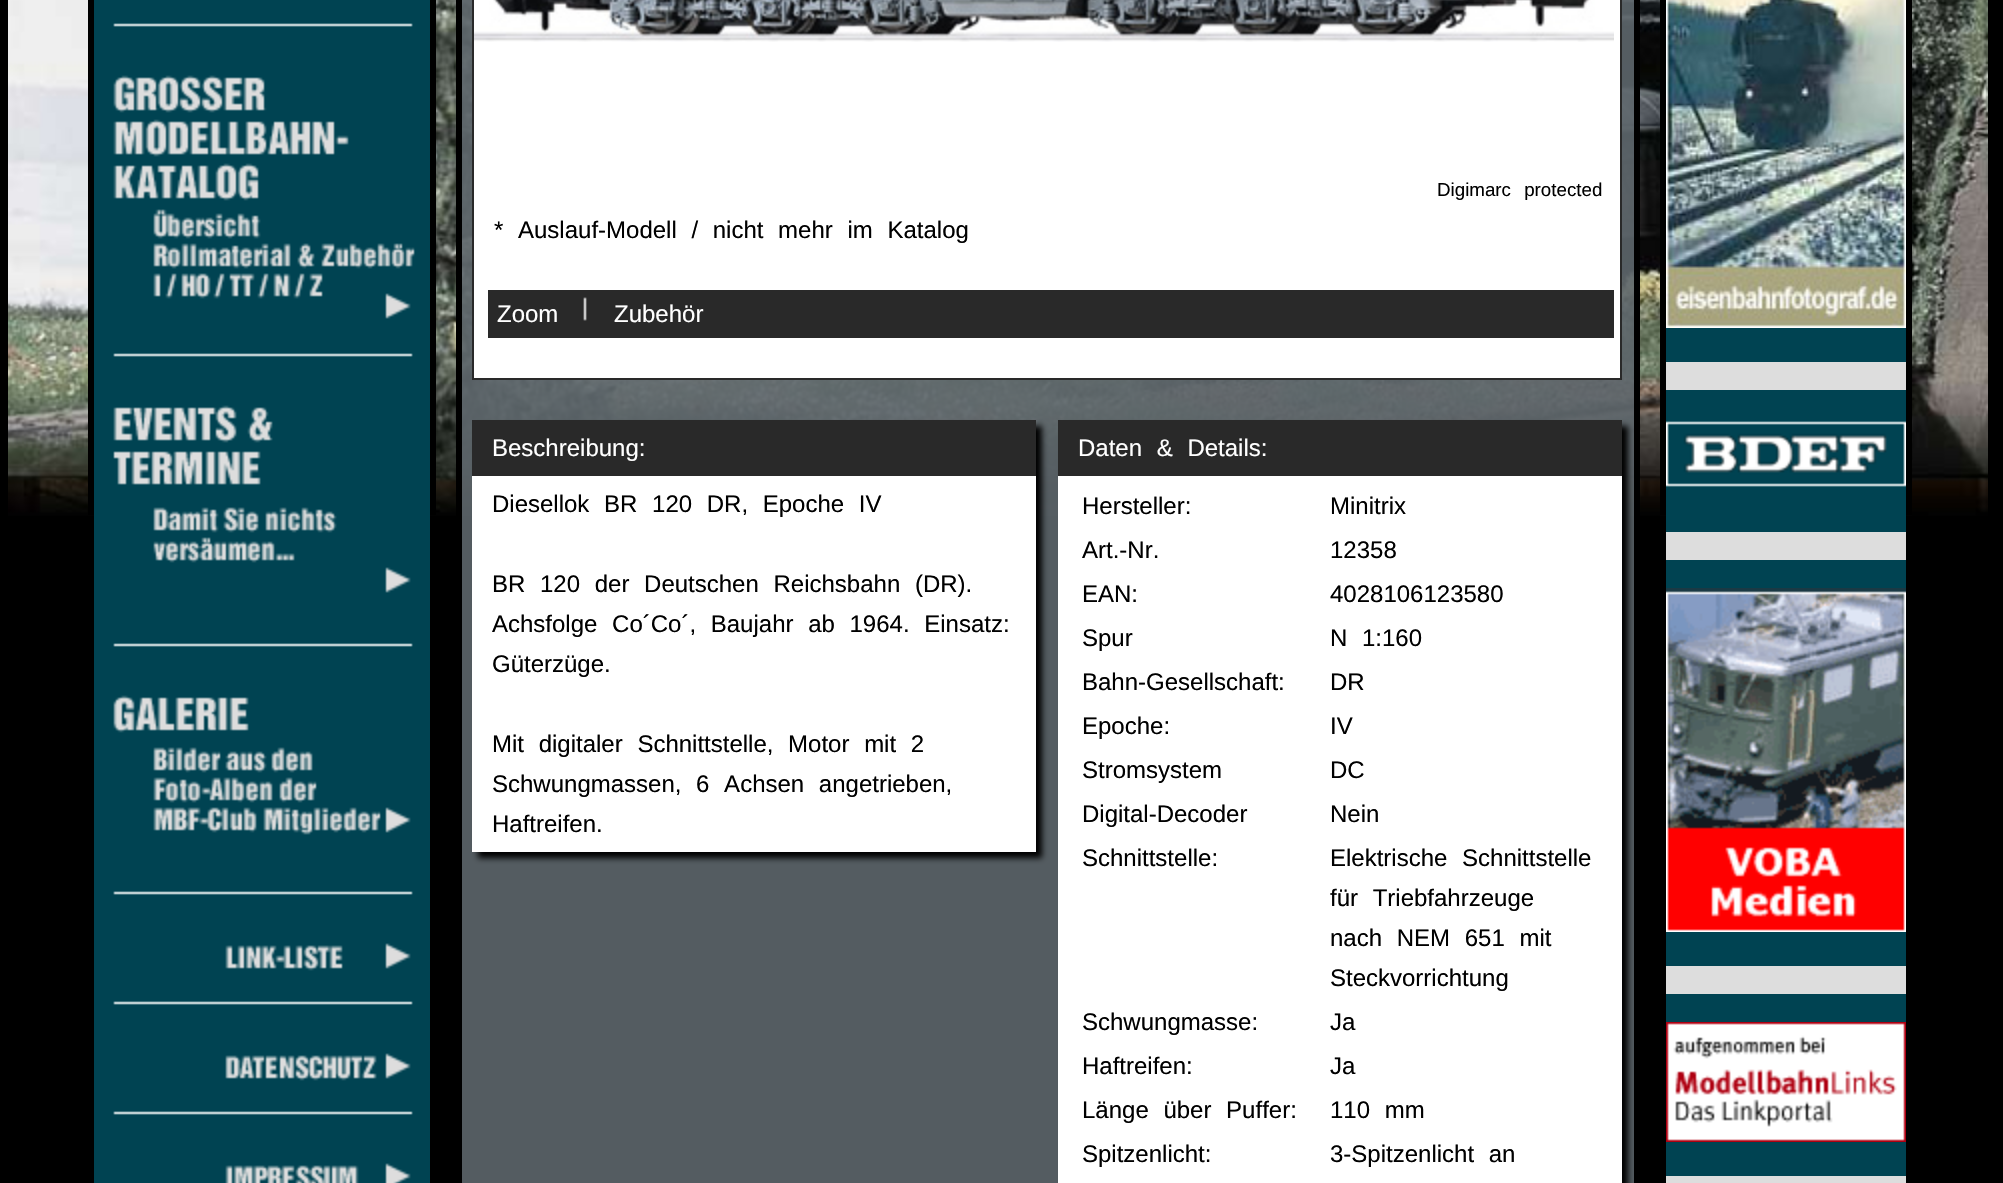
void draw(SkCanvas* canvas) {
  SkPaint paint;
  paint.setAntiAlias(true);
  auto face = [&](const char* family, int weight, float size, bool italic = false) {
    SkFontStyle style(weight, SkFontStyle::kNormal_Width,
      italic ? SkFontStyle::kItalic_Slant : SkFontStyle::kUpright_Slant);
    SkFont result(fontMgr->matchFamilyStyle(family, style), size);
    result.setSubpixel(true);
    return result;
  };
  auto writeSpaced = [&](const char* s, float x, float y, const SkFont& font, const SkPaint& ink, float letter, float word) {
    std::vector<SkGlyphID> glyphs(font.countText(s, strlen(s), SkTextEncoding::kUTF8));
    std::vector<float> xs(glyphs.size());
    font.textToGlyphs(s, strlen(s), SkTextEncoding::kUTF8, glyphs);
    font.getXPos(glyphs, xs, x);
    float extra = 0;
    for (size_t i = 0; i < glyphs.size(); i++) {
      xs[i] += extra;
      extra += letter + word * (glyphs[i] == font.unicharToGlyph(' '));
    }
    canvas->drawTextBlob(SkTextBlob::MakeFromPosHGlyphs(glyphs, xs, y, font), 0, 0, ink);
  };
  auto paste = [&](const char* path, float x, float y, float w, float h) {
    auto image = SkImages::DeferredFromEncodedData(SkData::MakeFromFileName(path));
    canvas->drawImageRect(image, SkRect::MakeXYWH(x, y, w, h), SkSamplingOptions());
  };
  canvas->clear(0xff000000);
  paste("img/1.png", 8, 0, 1980, 516);
  paint.setColor(0xff000000);
  canvas->drawRect(SkRect::MakeXYWH(88, 0, 6, 515), paint);
  paint.setColor(0xff004352);
  canvas->drawRect(SkRect::MakeXYWH(94, 0, 336, 1183), paint);
  paste("img/2.png", 113, 23, 300, 4);
  paste("img/3.png", 113, 75, 302, 244);
  paste("img/2.png", 113, 353, 300, 4);
  paste("img/4.png", 113, 405, 298, 188);
  paste("img/2.png", 113, 643, 300, 4);
  paste("img/5.png", 113, 695, 298, 140);
  paste("img/2.png", 113, 891, 300, 4);
  paste("img/6.png", 225, 943, 186, 28);
  paste("img/2.png", 113, 1001, 300, 4);
  paste("img/7.png", 225, 1053, 186, 28);
  paste("img/2.png", 113, 1111, 300, 4);
  paste("img/8.png", 225, 1163, 186, 20);
  paint.setColor(0xff000000);
  canvas->drawRect(SkRect::MakeXYWH(430, 0, 6, 515), paint);
  paint.setColor(0xe65d666c);
  canvas->drawRect(SkRect::MakeXYWH(459, -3, 1178, 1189), paint);
  paint.setStroke(true);
  paint.setStrokeWidth(6);
  paint.setColor(0xff000000);
  canvas->drawRect(SkRect::MakeXYWH(459, -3, 1178, 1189), paint);
  paint.setStroke(false);
  paint.setColor(0xff292929);
  canvas->drawRect(SkRect::MakeXYWH(472, 0, 1150, 380), paint);
  paint.setColor(0xffffffff);
  canvas->drawRect(SkRect::MakeXYWH(474, 0, 1146, 378), paint);
  paste("img/9.png", 474, 0, 1140, 42);
  paint.setColor(0xff292929);
  canvas->drawRect(SkRect::MakeXYWH(488, 290, 1126, 48), paint);
  paste("img/10.png", 583, 297, 4, 24);
  paint.setColor(0xff000000);
  paint.setMaskFilter(SkMaskFilter::MakeBlur(kNormal_SkBlurStyle, 3));
  canvas->drawRect(SkRect::MakeXYWH(478, 426, 564, 432), paint);
  paint.setMaskFilter(nullptr);
  paint.setColor(0xff292929);
  canvas->drawRect(SkRect::MakeXYWH(472, 420, 564, 56), paint);
  paint.setColor(0xffffffff);
  canvas->drawRect(SkRect::MakeXYWH(472, 476, 564, 376), paint);
  paint.setColor(0xff000000);
  paint.setMaskFilter(SkMaskFilter::MakeBlur(kNormal_SkBlurStyle, 3));
  canvas->drawRect(SkRect::MakeXYWH(1064, 426, 564, 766), paint);
  paint.setMaskFilter(nullptr);
  {
    const struct { float x, y, w, h; SkColor color; } items[] = {
      {1058, 420, 564, 56, 0xff292929},
      {1058, 476, 564, 707, 0xffffffff},
      {1660, 0, 6, 515, 0xff000000},
      {1666, 328, 240, 34, 0xff004352},
    };
    for (auto [x, y, w, h, color] : items) {
      paint.setColor(color);
      canvas->drawRect(SkRect::MakeXYWH(x, y, w, h), paint);
    }
  }
  paste("img/11.png", 1666, 0, 240, 328);
  {
    const struct { float x, y, w, h; SkColor color; } items[] = {
      {1906, 0, 6, 515, 0xff000000},
      {1666, 362, 240, 28, 0xffdddddd},
      {1666, 390, 240, 142, 0xff004352},
    };
    for (auto [x, y, w, h, color] : items) {
      paint.setColor(color);
      canvas->drawRect(SkRect::MakeXYWH(x, y, w, h), paint);
    }
  }
  paste("img/12.png", 1666, 421, 240, 66);
  {
    const struct { float x, y, w, h; SkColor color; } items[] = {
      {1666, 532, 240, 28, 0xffdddddd},
      {1666, 560, 240, 28, 0xff004352},
      {1666, 932, 240, 34, 0xff004352},
    };
    for (auto [x, y, w, h, color] : items) {
      paint.setColor(color);
      canvas->drawRect(SkRect::MakeXYWH(x, y, w, h), paint);
    }
  }
  paste("img/13.png", 1666, 588, 240, 344);
  {
    const struct { float x, y, w, h; SkColor color; } items[] = {
      {1666, 966, 240, 28, 0xffdddddd},
      {1666, 994, 240, 28, 0xff004352},
      {1666, 1142, 240, 34, 0xff004352},
    };
    for (auto [x, y, w, h, color] : items) {
      paint.setColor(color);
      canvas->drawRect(SkRect::MakeXYWH(x, y, w, h), paint);
    }
  }
  paste("img/14.png", 1666, 1022, 240, 120);
  paint.setColor(0xffdddddd);
  canvas->drawRect(SkRect::MakeXYWH(1666, 1176, 240, 7), paint);
  auto f0 = face("Liberation Sans", 400, 18.75f);
  paint.setColor(0xff000000);
  writeSpaced("Digimarc protected", 1437, 196, f0, paint, 0, 8);
  auto f1 = face("Liberation Sans", 400, 24);
  writeSpaced("* Auslauf-Modell / nicht mehr im Katalog", 494, 238, f1, paint, 0, 8);
  paint.setColor(0xffffffff);
  {
    const struct { const char* s; float x, y; } items[] = {
      {"Zoom", 497, 322},
      {"Zubehör", 614, 322},
      {"Beschreibung:", 492, 456},
    };
    for (auto [s, x, y] : items) {
      canvas->drawString(s, x, y, f1, paint);
    }
  }
  paint.setColor(0xff000000);
  {
    const struct { const char* s; float x, y; } items[] = {
      {"Diesellok BR 120 DR, Epoche IV", 492, 512},
      {"BR 120 der Deutschen Reichsbahn (DR).", 492, 592},
      {"Achsfolge Co´Co´, Baujahr ab 1964. Einsatz:", 492, 632},
    };
    for (auto [s, x, y] : items) {
      writeSpaced(s, x, y, f1, paint, 0, 8);
    }
  }
  canvas->drawString("Güterzüge.", 492, 672, f1, paint);
  writeSpaced("Mit digitaler Schnittstelle, Motor mit 2", 492, 752, f1, paint, 0, 8);
  writeSpaced("Schwungmassen, 6 Achsen angetrieben,", 492, 792, f1, paint, 0, 8);
  canvas->drawString("Haftreifen.", 492, 832, f1, paint);
  paint.setColor(0xffffffff);
  writeSpaced("Daten & Details:", 1078, 456, f1, paint, 0, 8);
  paint.setColor(0xff000000);
  {
    const struct { const char* s; float x, y; } items[] = {
      {"Hersteller:", 1082, 514},
      {"Minitrix", 1330, 514},
      {"Art.-Nr.", 1082, 558},
      {"12358", 1330, 558},
      {"EAN:", 1082, 602},
      {"4028106123580", 1330, 602},
      {"Spur", 1082, 646},
    };
    for (auto [s, x, y] : items) {
      canvas->drawString(s, x, y, f1, paint);
    }
  }
  writeSpaced("N 1:160", 1330, 646, f1, paint, 0, 8);
  {
    const struct { const char* s; float x, y; } items[] = {
      {"Bahn-Gesellschaft:", 1082, 690},
      {"DR", 1330, 690},
      {"Epoche:", 1082, 734},
      {"IV", 1330, 734},
      {"Stromsystem", 1082, 778},
      {"DC", 1330, 778},
      {"Digital-Decoder", 1082, 822},
      {"Nein", 1330, 822},
      {"Schnittstelle:", 1082, 866},
    };
    for (auto [s, x, y] : items) {
      canvas->drawString(s, x, y, f1, paint);
    }
  }
  {
    const struct { const char* s; float x, y; } items[] = {
      {"Elektrische Schnittstelle", 1330, 866},
      {"für Triebfahrzeuge", 1330, 906},
      {"nach NEM 651 mit", 1330, 946},
    };
    for (auto [s, x, y] : items) {
      writeSpaced(s, x, y, f1, paint, 0, 8);
    }
  }
  {
    const struct { const char* s; float x, y; } items[] = {
      {"Steckvorrichtung", 1330, 986},
      {"Schwungmasse:", 1082, 1030},
      {"Ja", 1330, 1030},
      {"Haftreifen:", 1082, 1074},
      {"Ja", 1330, 1074},
    };
    for (auto [s, x, y] : items) {
      canvas->drawString(s, x, y, f1, paint);
    }
  }
  writeSpaced("Länge über Puffer:", 1082, 1118, f1, paint, 0, 8);
  writeSpaced("110 mm", 1330, 1118, f1, paint, 0, 8);
  canvas->drawString("Spitzenlicht:", 1082, 1162, f1, paint);
  writeSpaced("3-Spitzenlicht an", 1330, 1162, f1, paint, 0, 8);
}
